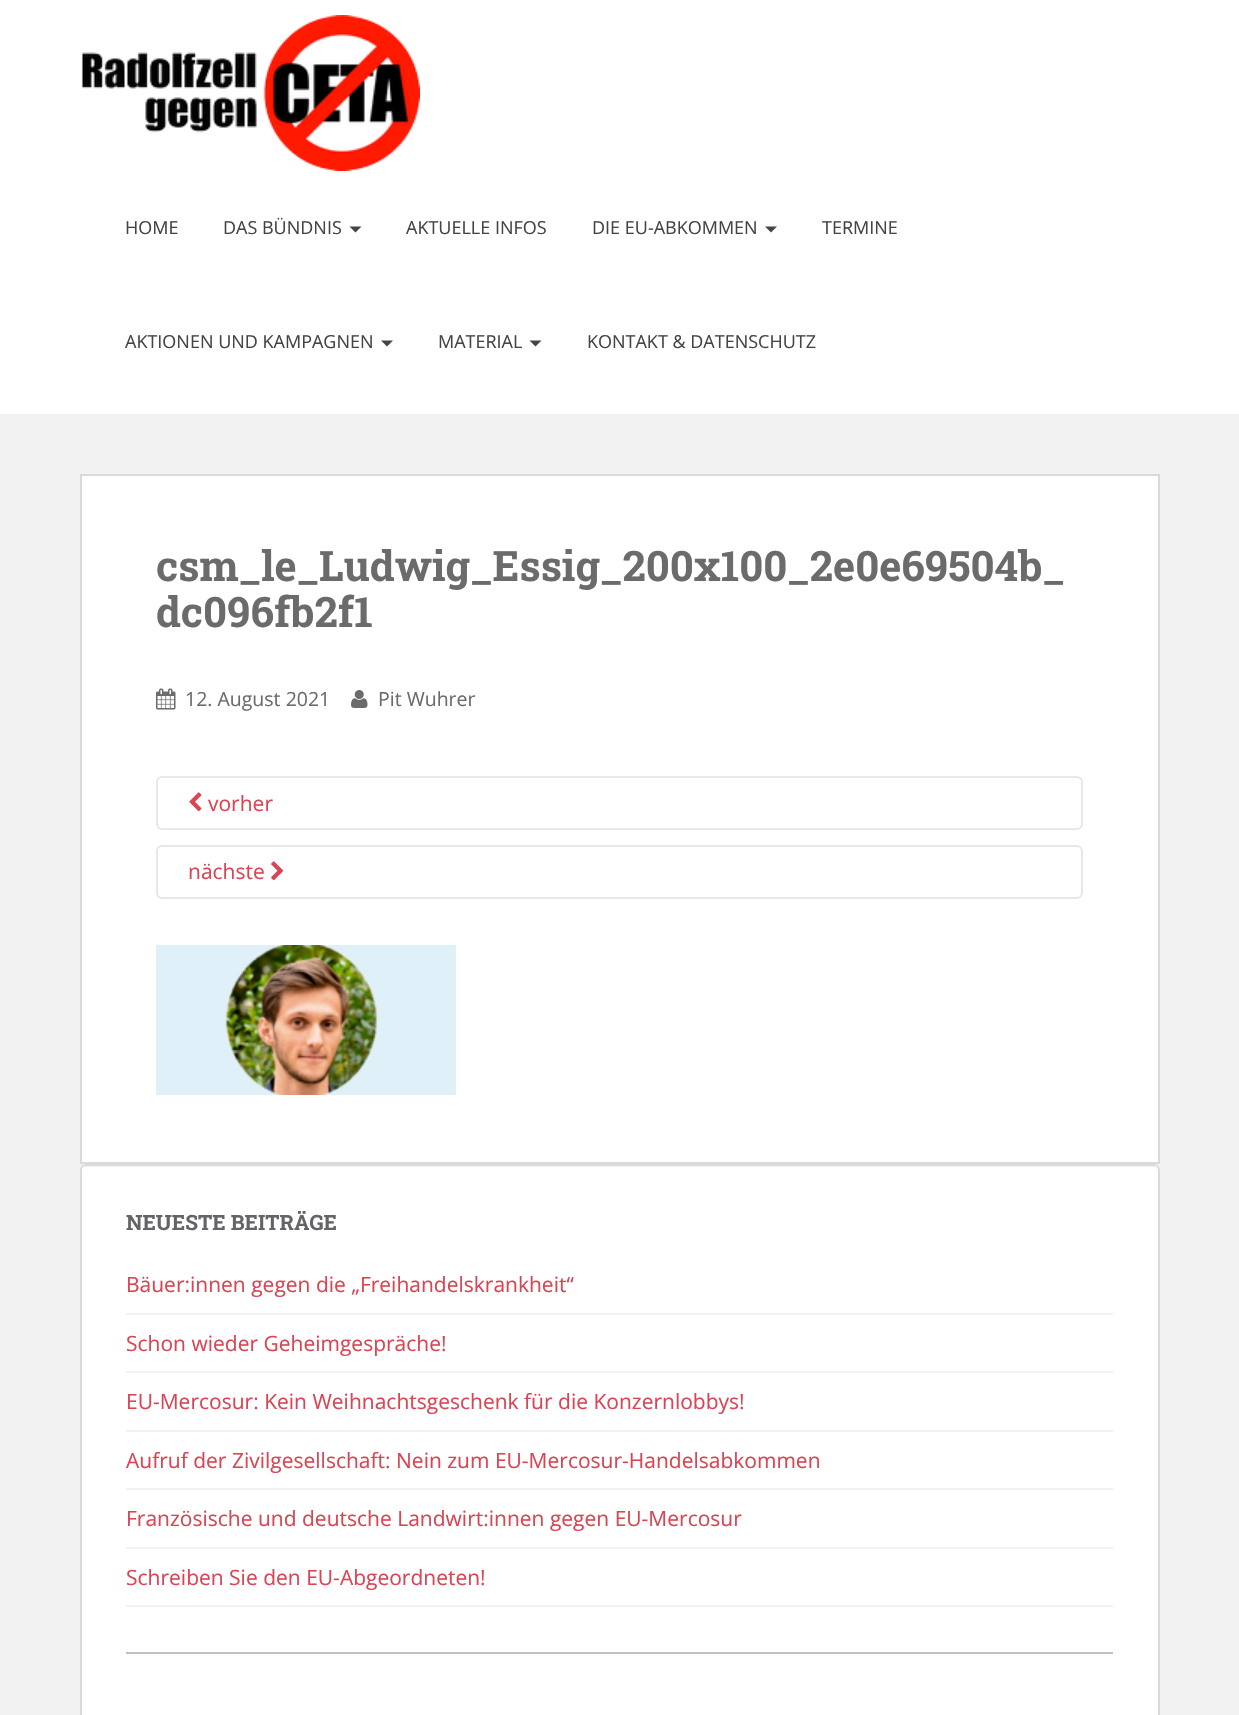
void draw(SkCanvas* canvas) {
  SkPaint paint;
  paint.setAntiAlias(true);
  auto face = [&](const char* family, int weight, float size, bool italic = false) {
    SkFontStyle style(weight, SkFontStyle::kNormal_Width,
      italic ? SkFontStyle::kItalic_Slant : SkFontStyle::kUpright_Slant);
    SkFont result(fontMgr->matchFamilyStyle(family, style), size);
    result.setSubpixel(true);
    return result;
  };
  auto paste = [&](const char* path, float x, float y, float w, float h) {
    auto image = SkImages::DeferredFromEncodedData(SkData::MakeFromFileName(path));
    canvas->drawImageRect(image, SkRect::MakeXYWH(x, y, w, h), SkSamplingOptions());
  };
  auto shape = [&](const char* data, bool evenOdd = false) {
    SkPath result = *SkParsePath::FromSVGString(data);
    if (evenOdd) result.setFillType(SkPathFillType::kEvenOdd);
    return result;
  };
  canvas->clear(0xfff2f2f2);
  paint.setColor(0xffffffff);
  canvas->drawRect(SkRect::MakeXYWH(0, 0, 1239, 414), paint);
  paste("img/1.png", 81, 15, 339, 156);
  paint.setColor(0xff444444);
  canvas->drawPath(shape("M349.5 226.5H361.5L355.5 232.5Z"), paint);
  canvas->drawPath(shape("M765 226.5H777L771 232.5Z"), paint);
  canvas->drawPath(shape("M381 340.5H393L387 346.5Z"), paint);
  canvas->drawPath(shape("M529.5 340.5H541.5L535.5 346.5Z"), paint);
  paint.setColor(0xffffffff);
  canvas->drawRect(SkRect::MakeXYWH(81, 475, 1078, 688), paint);
  paint.setStroke(true);
  paint.setStrokeWidth(2);
  paint.setColor(0xffdadada);
  canvas->drawRect(SkRect::MakeXYWH(81, 475, 1078, 688), paint);
  paste("img/2.png", 156, 688, 20, 22);
  paste("img/3.png", 351, 690, 17, 18);
  paint.setColor(0xffe8e8e8);
  canvas->drawRoundRect(SkRect::MakeXYWH(157, 777, 925, 52), 5, 5, paint);
  paste("img/4.png", 189, 792, 13, 20);
  canvas->drawRoundRect(SkRect::MakeXYWH(157, 846, 925, 52), 5, 5, paint);
  paste("img/5.png", 271, 861, 13, 20);
  paste("img/6.png", 156, 945, 300, 150);
  paint.setStroke(false);
  paint.setColor(0xffffffff);
  canvas->drawRoundRect(SkRect::MakeXYWH(80, 1164, 1080, 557), 6, 6, paint);
  paint.setColor(0xfff2f2f2);
  canvas->drawPath(shape("M86 1167H1154C1156 1167 1158 1169 1158 1172C1158 1169 1156 1166 1153 1166H86C83 1166 81 1169 81 1172C81 1169 83 1167 86 1167Z"), paint);
  paint.setStroke(true);
  paint.setColor(0xffdadada);
  canvas->drawRoundRect(SkRect::MakeXYWH(81, 1165, 1078, 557), 5, 5, paint);
  paint.setStroke(false);
  {
    const struct { float x, y, w, h; SkColor color; } items[] = {
      {126, 1652, 987, 2, 0xffc1c0c0},
      {126, 1313, 987, 2, 0xfff2f2f2},
      {126, 1371, 987, 2, 0xfff2f2f2},
      {126, 1430, 987, 2, 0xfff2f2f2},
      {126, 1488, 987, 2, 0xfff2f2f2},
      {126, 1547, 987, 2, 0xfff2f2f2},
      {126, 1605, 987, 2, 0xfff2f2f2},
    };
    for (auto [x, y, w, h, color] : items) {
      paint.setColor(color);
      canvas->drawRect(SkRect::MakeXYWH(x, y, w, h), paint);
    }
  }
  auto f0 = face("Open Sans", 400, 18);
  paint.setColor(0xff444444);
  {
    const struct { const char* s; float x, y; } items[] = {
      {"HOME", 125, 234},
      {"DAS BÜNDNIS", 223, 234},
      {"AKTUELLE INFOS", 406, 234},
      {"DIE EU-ABKOMMEN", 592, 234},
      {"TERMINE", 822, 234},
      {"AKTIONEN UND KAMPAGNEN", 125, 348},
      {"MATERIAL", 438, 348},
      {"KONTAKT & DATENSCHUTZ", 587, 348},
    };
    for (auto [s, x, y] : items) {
      canvas->drawString(s, x, y, f0, paint);
    }
  }
  auto f1 = face("Roboto Slab", 700, 42);
  paint.setColor(0xff6b6b6b);
  canvas->drawString("csm_le_Ludwig_Essig_200x100_2e0e69504b_", 156, 581, f1, paint);
  canvas->drawString("dc096fb2f1", 156, 627, f1, paint);
  auto f2 = face("Open Sans", 400, 19.5f);
  canvas->drawString("12. August 2021", 185, 706, f2, paint);
  canvas->drawString("Pit Wuhrer", 378, 706, f2, paint);
  auto f3 = face("Open Sans", 400, 21);
  paint.setColor(0xffda4453);
  canvas->drawString("vorher", 208, 811, f3, paint);
  canvas->drawString("nächste", 188, 879, f3, paint);
  auto f4 = face("Roboto Slab", 700, 21);
  paint.setColor(0xff636467);
  canvas->drawString("NEUESTE BEITRÄGE", 126, 1230, f4, paint);
  paint.setColor(0xffda4453);
  {
    const struct { const char* s; float x, y; } items[] = {
      {"Bäuer:innen gegen die „Freihandelskrankheit“", 126, 1292},
      {"Schon wieder Geheimgespräche!", 126, 1351},
      {"EU-Mercosur: Kein Weihnachtsgeschenk für die Konzernlobbys!", 126, 1409},
      {"Aufruf der Zivilgesellschaft: Nein zum EU-Mercosur-Handelsabkommen", 126, 1468},
      {"Französische und deutsche Landwirt:innen gegen EU-Mercosur", 126, 1526},
      {"Schreiben Sie den EU-Abgeordneten!", 126, 1585},
    };
    for (auto [s, x, y] : items) {
      canvas->drawString(s, x, y, f3, paint);
    }
  }
}
